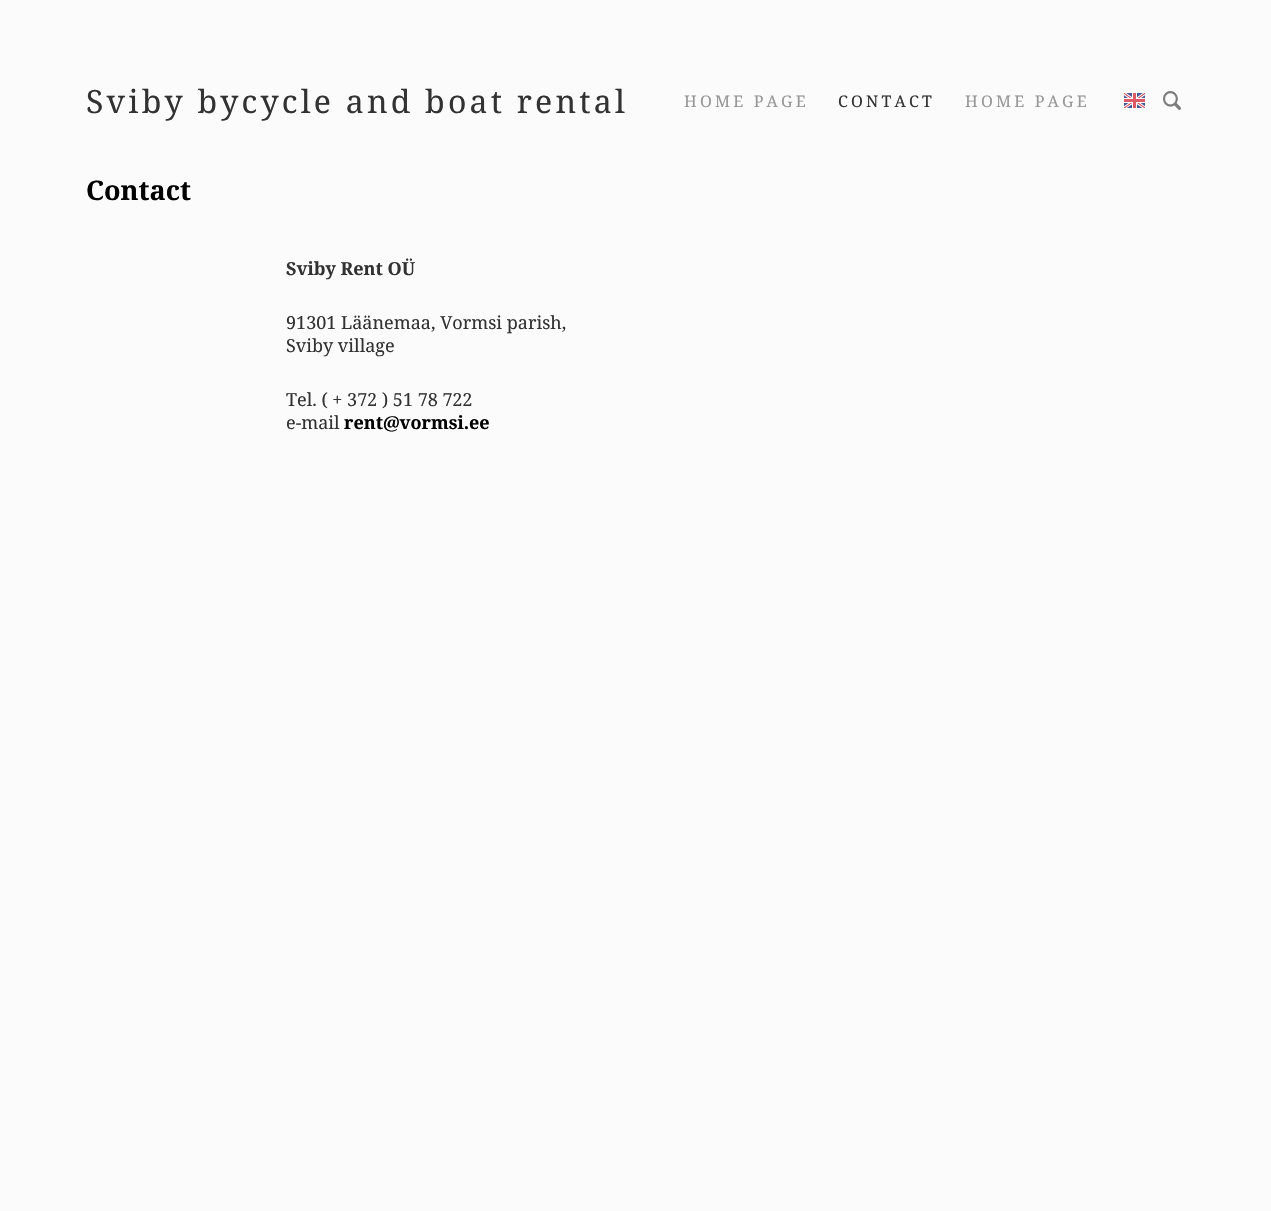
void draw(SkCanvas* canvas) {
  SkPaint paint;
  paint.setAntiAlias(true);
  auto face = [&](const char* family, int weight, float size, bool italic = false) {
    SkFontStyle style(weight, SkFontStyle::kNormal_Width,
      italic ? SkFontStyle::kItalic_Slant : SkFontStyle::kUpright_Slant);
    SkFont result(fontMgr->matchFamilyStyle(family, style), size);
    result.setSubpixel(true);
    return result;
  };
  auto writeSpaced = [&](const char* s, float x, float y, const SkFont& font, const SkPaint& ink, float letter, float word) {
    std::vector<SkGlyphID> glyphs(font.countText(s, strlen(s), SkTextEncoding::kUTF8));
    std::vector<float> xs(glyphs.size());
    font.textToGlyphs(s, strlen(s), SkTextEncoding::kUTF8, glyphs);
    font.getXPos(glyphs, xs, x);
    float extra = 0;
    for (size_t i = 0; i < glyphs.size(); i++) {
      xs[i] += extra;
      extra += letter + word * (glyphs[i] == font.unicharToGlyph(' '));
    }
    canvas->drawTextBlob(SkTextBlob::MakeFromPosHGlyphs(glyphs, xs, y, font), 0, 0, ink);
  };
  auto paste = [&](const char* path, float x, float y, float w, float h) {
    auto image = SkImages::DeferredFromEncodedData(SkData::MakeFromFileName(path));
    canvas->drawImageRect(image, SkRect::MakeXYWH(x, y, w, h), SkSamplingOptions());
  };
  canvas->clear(0xfffbfbfb);
  paste("img/1.png", 1124, 93, 21, 15);
  paste("img/2.png", 1163, 91, 18, 19);
  auto f0 = face("Noto Serif", 400, 32);
  paint.setColor(0xff323232);
  writeSpaced("Sviby bycycle and boat rental", 86, 113, f0, paint, 3.2f, 0);
  auto f1 = face("Noto Serif", 400, 16);
  paint.setColor(0xff979797);
  writeSpaced("HOME PAGE", 684, 107, f1, paint, 3.2f, 0);
  paint.setColor(0xff323232);
  writeSpaced("CONTACT", 838, 107, f1, paint, 3.2f, 0);
  paint.setColor(0xff979797);
  writeSpaced("HOME PAGE", 965, 107, f1, paint, 3.2f, 0);
  auto f2 = face("Noto Serif", 700, 27);
  paint.setColor(0xff000000);
  canvas->drawString("Contact", 86, 200, f2, paint);
  auto f3 = face("Noto Serif", 700, 18);
  paint.setColor(0xff323232);
  canvas->drawString("Sviby Rent OÜ", 286, 275, f3, paint);
  auto f4 = face("Noto Serif", 400, 18);
  {
    const struct { const char* s; float x, y; } items[] = {
      {"91301 Läänemaa, Vormsi parish,", 286, 329},
      {"Sviby village", 286, 352},
      {"Tel. ( + 372 ) 51 78 722", 286, 406},
      {"e-mail", 286, 429},
    };
    for (auto [s, x, y] : items) {
      canvas->drawString(s, x, y, f4, paint);
    }
  }
  paint.setColor(0xff000000);
  canvas->drawString("rent@vormsi.ee", 344, 429, f3, paint);
}
